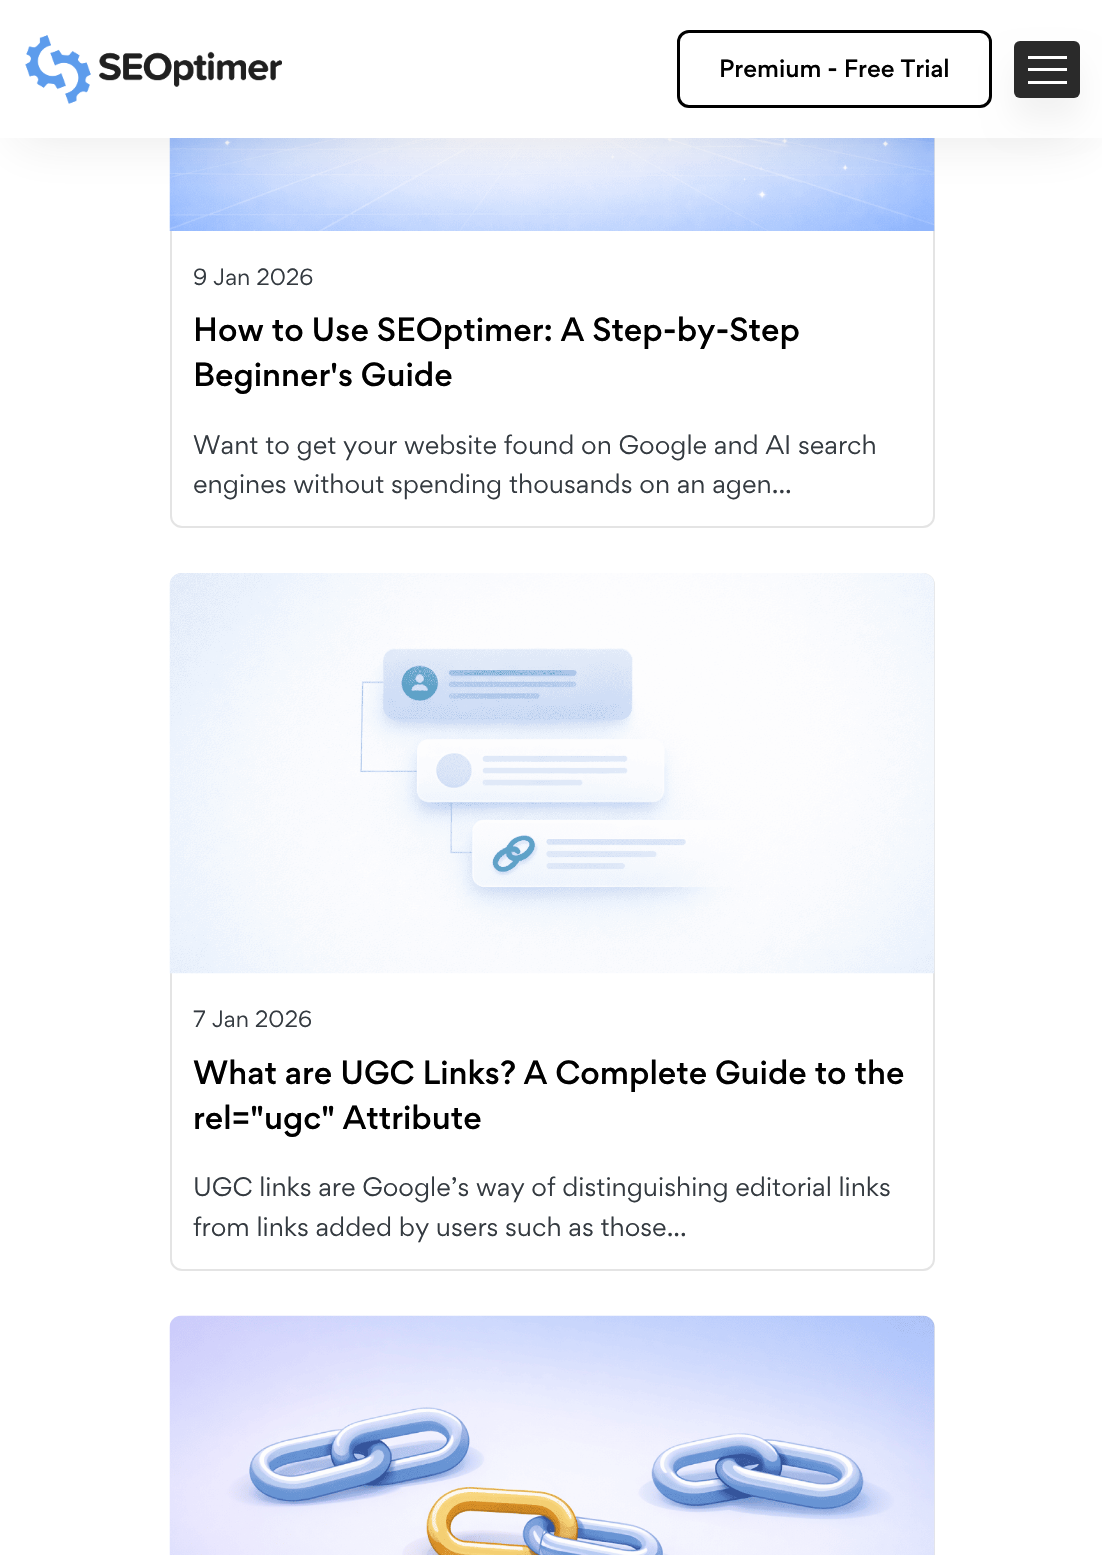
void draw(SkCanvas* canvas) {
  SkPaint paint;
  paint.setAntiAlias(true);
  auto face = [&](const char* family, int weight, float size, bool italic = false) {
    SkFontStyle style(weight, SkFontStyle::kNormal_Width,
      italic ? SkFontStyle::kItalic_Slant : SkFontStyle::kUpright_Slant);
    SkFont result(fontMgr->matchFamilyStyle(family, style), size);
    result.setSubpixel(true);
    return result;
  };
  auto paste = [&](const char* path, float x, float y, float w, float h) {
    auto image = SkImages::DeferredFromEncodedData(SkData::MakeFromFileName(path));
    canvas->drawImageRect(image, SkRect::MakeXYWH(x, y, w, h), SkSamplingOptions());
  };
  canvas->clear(0xffffffff);
  paint.setStroke(true);
  paint.setStrokeWidth(2);
  paint.setColor(0xffe4e4e4);
  canvas->drawRoundRect(SkRect::MakeXYWH(171, -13, 763, 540), 11, 11, paint);
  paste("img/2.png", 169, 138, 766, 93);
  paint.setStroke(false);
  paint.setColor(0x1a232323);
  paint.setMaskFilter(SkMaskFilter::MakeBlur(kNormal_SkBlurStyle, 26));
  canvas->drawRect(SkRect::MakeXYWH(18, 38, 1067, 102), paint);
  paint.setMaskFilter(nullptr);
  paint.setColor(0xffffffff);
  canvas->drawRect(SkRect::MakeXYWH(0, 0, 1102, 138), paint);
  paste("img/1.png", 25, 35, 257, 69);
  paint.setStroke(true);
  paint.setStrokeWidth(3);
  paint.setColor(0xff000000);
  canvas->drawRoundRect(SkRect::MakeXYWH(678.5f, 31.5f, 312, 75), 10.5f, 10.5f, paint);
  paint.setStroke(false);
  paint.setColor(0x0d000000);
  paint.setMaskFilter(SkMaskFilter::MakeBlur(kNormal_SkBlurStyle, 15));
  canvas->drawRoundRect(SkRect::MakeXYWH(1014, 63, 66, 57), 6, 6, paint);
  paint.setMaskFilter(nullptr);
  paint.setColor(0xff2a2a2a);
  canvas->drawRoundRect(SkRect::MakeXYWH(1014, 41, 66, 57), 6, 6, paint);
  {
    const struct { float x, y, w, h; SkColor color; } items[] = {
      {1028, 56, 39, 3, 0xffffffff},
      {1028, 68, 39, 3, 0xffffffff},
      {1028, 81, 39, 3, 0xffffffff},
    };
    for (auto [x, y, w, h, color] : items) {
      paint.setColor(color);
      canvas->drawRect(SkRect::MakeXYWH(x, y, w, h), paint);
    }
  }
  paint.setStroke(true);
  paint.setStrokeWidth(2);
  paint.setColor(0xffe4e4e4);
  canvas->drawRoundRect(SkRect::MakeXYWH(171, 574, 763, 696), 11, 11, paint);
  paste("img/3.png", 169, 573, 766, 401);
  canvas->drawRoundRect(SkRect::MakeXYWH(171, 1317, 763, 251), 11, 11, paint);
  paste("img/4.png", 169, 1315, 766, 240);
  auto f0 = face("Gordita", 500, 22.5f);
  paint.setStroke(false);
  paint.setColor(0xff000000);
  canvas->drawString("Premium - Free Trial", 719, 77, f0, paint);
  auto f1 = face("Gordita", 400, 21);
  paint.setColor(0xff343a40);
  canvas->drawString("9 Jan 2026", 193, 285, f1, paint);
  auto f2 = face("Gordita", 500, 30);
  paint.setColor(0xff000000);
  canvas->drawString("How to Use SEOptimer: A Step-by-Step", 193, 341, f2, paint);
  canvas->drawString("Beginner's Guide", 193, 386, f2, paint);
  auto f3 = face("Gordita", 400, 24);
  paint.setColor(0xff343a40);
  canvas->drawString("Want to get your website found on Google and AI search", 193, 454, f3, paint);
  canvas->drawString("engines without spending thousands on an agen...", 193, 493, f3, paint);
  canvas->drawString("7 Jan 2026", 193, 1027, f1, paint);
  paint.setColor(0xff000000);
  canvas->drawString("What are UGC Links? A Complete Guide to the", 193, 1084, f2, paint);
  canvas->drawString("rel=\"ugc\" Attribute", 193, 1129, f2, paint);
  paint.setColor(0xff343a40);
  canvas->drawString("UGC links are Google’s way of distinguishing editorial links", 193, 1196, f3, paint);
  canvas->drawString("from links added by users such as those...", 193, 1236, f3, paint);
}
